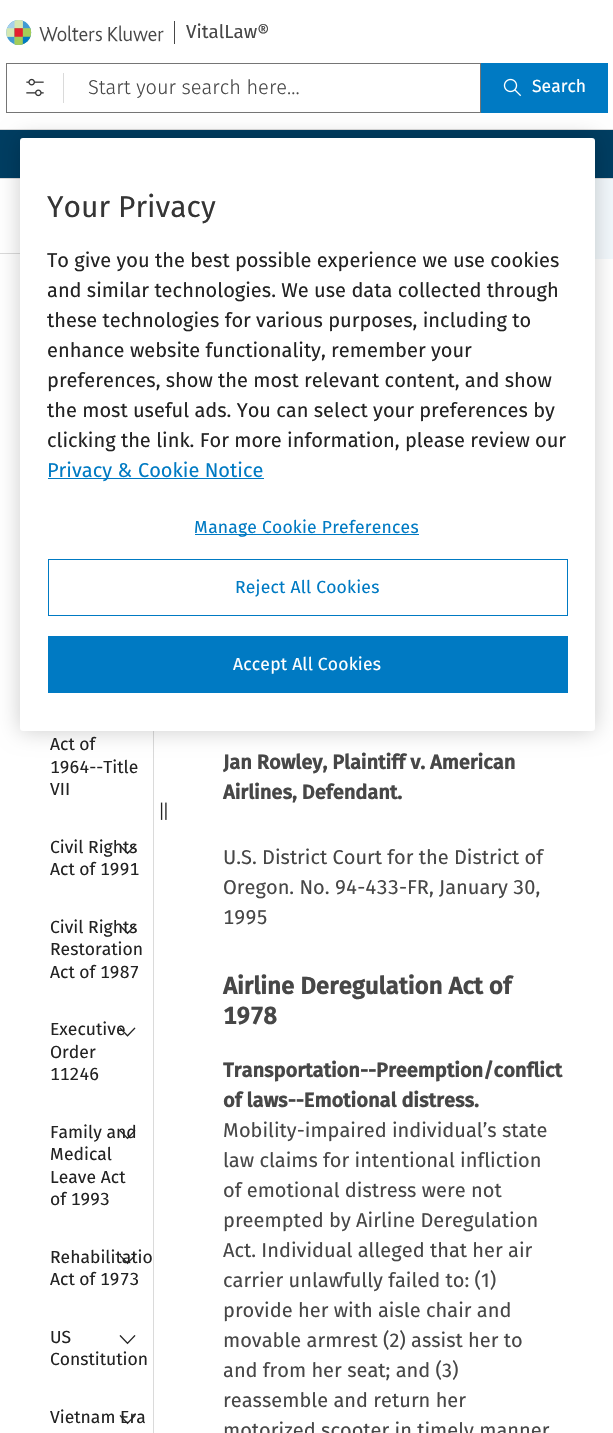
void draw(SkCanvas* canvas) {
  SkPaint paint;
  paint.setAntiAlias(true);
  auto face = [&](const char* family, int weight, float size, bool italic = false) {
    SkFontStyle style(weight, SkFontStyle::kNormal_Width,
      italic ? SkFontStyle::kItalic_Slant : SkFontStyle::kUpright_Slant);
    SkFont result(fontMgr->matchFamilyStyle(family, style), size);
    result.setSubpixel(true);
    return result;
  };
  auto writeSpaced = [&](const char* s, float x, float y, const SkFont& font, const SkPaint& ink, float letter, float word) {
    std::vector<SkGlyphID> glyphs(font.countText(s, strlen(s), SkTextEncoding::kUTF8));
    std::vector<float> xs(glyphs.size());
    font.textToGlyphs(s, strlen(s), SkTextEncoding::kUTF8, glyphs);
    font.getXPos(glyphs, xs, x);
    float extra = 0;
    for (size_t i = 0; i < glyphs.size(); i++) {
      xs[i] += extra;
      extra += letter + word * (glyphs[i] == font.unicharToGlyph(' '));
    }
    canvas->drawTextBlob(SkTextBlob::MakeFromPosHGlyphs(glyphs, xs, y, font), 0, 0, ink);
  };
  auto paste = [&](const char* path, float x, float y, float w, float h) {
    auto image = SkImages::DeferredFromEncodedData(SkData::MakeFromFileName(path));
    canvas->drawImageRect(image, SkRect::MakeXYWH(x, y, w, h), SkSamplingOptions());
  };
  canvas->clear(0xffffffff);
  paint.setColor(0xffdadada);
  canvas->drawRect(SkRect::MakeXYWH(0, 129, 613, 1), paint);
  paste("img/1.png", 6, 20, 158, 25);
  paint.setColor(0xff474747);
  canvas->drawRect(SkRect::MakeXYWH(174, 21, 1, 23), paint);
  paint.setStroke(true);
  paint.setStrokeWidth(1);
  paint.setColor(0xff757575);
  canvas->drawRect(SkRect::MakeXYWH(6.5f, 63.5f, 474, 49), paint);
  paste("img/2.png", 26, 78, 18, 19);
  paint.setStroke(false);
  paint.setColor(0xffdadada);
  canvas->drawRect(SkRect::MakeXYWH(63, 73, 1, 30), paint);
  paint.setColor(0xff007ac3);
  canvas->drawRect(SkRect::MakeXYWH(481, 63, 127, 50), paint);
  paste("img/3.png", 503, 78, 19, 19);
  {
    const struct { float x, y, w, h; SkColor color; } items[] = {
      {0, 130, 613, 48, 0xff003d61},
      {0, 178, 613, 1, 0xffdadada},
      {153, 731, 1, 702, 0xffdadada},
      {0, 253, 20, 1, 0xffdadada},
    };
    for (auto [x, y, w, h, color] : items) {
      paint.setColor(color);
      canvas->drawRect(SkRect::MakeXYWH(x, y, w, h), paint);
    }
  }
  paste("img/8.png", 119, 1335, 17, 10);
  paste("img/10.png", 160, 802, 7, 18);
  paint.setColor(0xfff2f8fc);
  canvas->drawRect(SkRect::MakeXYWH(595, 179, 18, 80), paint);
  paint.setColor(0x33000000);
  paint.setMaskFilter(SkMaskFilter::MakeBlur(kNormal_SkBlurStyle, 11));
  canvas->drawRoundRect(SkRect::MakeXYWH(20, 138, 575, 593), 3, 3, paint);
  paint.setMaskFilter(nullptr);
  paint.setColor(0xffffffff);
  canvas->drawRoundRect(SkRect::MakeXYWH(20, 138, 575, 593), 3, 3, paint);
  paint.setColor(0xff007ac3);
  canvas->drawRect(SkRect::MakeXYWH(48, 478, 216, 1), paint);
  canvas->drawRect(SkRect::MakeXYWH(195, 534, 224, 1), paint);
  paint.setStroke(true);
  canvas->drawRect(SkRect::MakeXYWH(48.5f, 559.5f, 519, 56), paint);
  paint.setStroke(false);
  canvas->drawRect(SkRect::MakeXYWH(48, 636, 520, 57), paint);
  auto f0 = face("Fira Sans", 400, 18.75f);
  paint.setColor(0xff474747);
  canvas->drawString("VitalLaw®", 186, 38, f0, paint);
  auto f1 = face("Fira Sans", 300, 20);
  canvas->drawString("Start your search here...", 88, 94, f1, paint);
  auto f2 = face("Fira Sans", 400, 17.5f);
  paint.setColor(0xffffffff);
  canvas->drawString("Search", 532, 92, f2, paint);
  paint.setColor(0xff232323);
  canvas->drawString("Act of", 50, 750, f2, paint);
  auto f3 = face("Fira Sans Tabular", 400, 17.5f);
  canvas->drawString("1964--Title", 50, 773, f3, paint);
  canvas->drawString("VII", 50, 795, f2, paint);
  canvas->drawString("Civil Rights", 50, 853, f2, paint);
  canvas->drawString("Act of 1991", 50, 875, f3, paint);
  paste("img/4.png", 119, 845, 17, 10);
  canvas->drawString("Civil Rights", 50, 933, f2, paint);
  canvas->drawString("Restoration", 50, 955, f2, paint);
  canvas->drawString("Act of 1987", 50, 978, f3, paint);
  paste("img/4.png", 119, 925, 17, 10);
  canvas->drawString("Executive", 50, 1035, f2, paint);
  canvas->drawString("Order", 50, 1058, f2, paint);
  canvas->drawString("11246", 50, 1080, f3, paint);
  paste("img/5.png", 119, 1027, 17, 10);
  {
    const struct { const char* s; float x, y; } items[] = {
      {"Family and", 50, 1138},
      {"Medical", 50, 1160},
      {"Leave Act", 50, 1183},
    };
    for (auto [s, x, y] : items) {
      canvas->drawString(s, x, y, f2, paint);
    }
  }
  canvas->drawString("of 1993", 50, 1205, f3, paint);
  paste("img/6.png", 119, 1130, 17, 10);
  canvas->drawString("Rehabilitatio", 50, 1263, f2, paint);
  canvas->drawString("Act of 1973", 50, 1285, f3, paint);
  paste("img/7.png", 119, 1255, 17, 10);
  {
    const struct { const char* s; float x, y; } items[] = {
      {"US", 50, 1343},
      {"Constitution", 50, 1365},
      {"Vietnam Era", 50, 1423},
    };
    for (auto [s, x, y] : items) {
      canvas->drawString(s, x, y, f2, paint);
    }
  }
  paste("img/9.png", 119, 1415, 17, 10);
  auto f4 = face("Fira Sans", 700, 20);
  paint.setColor(0xff474747);
  canvas->drawString("Jan Rowley, Plaintiff v. American", 223, 769, f4, paint);
  canvas->drawString("Airlines, Defendant.", 223, 799, f4, paint);
  auto f5 = face("Fira Sans", 400, 20);
  canvas->drawString("U.S. District Court for the District of", 223, 864, f5, paint);
  auto f6 = face("Fira Sans Tabular", 400, 20);
  canvas->drawString("Oregon. No. 94-433-FR, January 30,", 223, 894, f6, paint);
  canvas->drawString("1995", 223, 924, f6, paint);
  auto f7 = face("Fira Sans", 700, 24);
  canvas->drawString("Airline Deregulation Act of", 223, 994, f7, paint);
  auto f8 = face("Fira Sans Tabular", 700, 24);
  canvas->drawString("1978", 223, 1024, f8, paint);
  canvas->drawString("Transportation--Preemption/conflict", 223, 1077, f4, paint);
  canvas->drawString("of laws--Emotional distress.", 223, 1107, f4, paint);
  {
    const struct { const char* s; float x, y; } items[] = {
      {"Mobility-impaired individual’s state", 223, 1137},
      {"law claims for intentional infliction", 223, 1167},
      {"of emotional distress were not", 223, 1197},
      {"preempted by Airline Deregulation", 223, 1227},
      {"Act. Individual alleged that her air", 223, 1257},
      {"carrier unlawfully failed to: (1)", 223, 1287},
      {"provide her with aisle chair and", 223, 1317},
      {"movable armrest (2) assist her to", 223, 1347},
      {"and from her seat; and (3)", 223, 1377},
      {"reassemble and return her", 223, 1407},
      {"motorized scooter in timely manner", 223, 1437},
    };
    for (auto [s, x, y] : items) {
      canvas->drawString(s, x, y, f5, paint);
    }
  }
  auto f9 = face("Fira Sans", 400, 30);
  paint.setColor(0xff353535);
  canvas->drawString("Your Privacy", 47, 217, f9, paint);
  paint.setColor(0xff232323);
  {
    const struct { const char* s; float x, y; } items[] = {
      {"To give you the best possible experience we use cookies", 47, 267},
      {"and similar technologies. We use data collected through", 47, 297},
      {"these technologies for various purposes, including to", 47, 327},
      {"enhance website functionality, remember your", 47, 357},
      {"preferences, show the most relevant content, and show", 47, 387},
      {"the most useful ads. You can select your preferences by", 47, 417},
      {"clicking the link. For more information, please review our", 47, 447},
    };
    for (auto [s, x, y] : items) {
      canvas->drawString(s, x, y, f5, paint);
    }
  }
  paint.setColor(0xff007ac3);
  canvas->drawString("Privacy & Cookie Notice", 47, 477, f5, paint);
  writeSpaced("Manage Cookie Preferences", 194, 533, f2, paint, 0.2f, 0);
  writeSpaced("Reject All Cookies", 235, 593, f2, paint, 0.2f, 0);
  paint.setColor(0xffffffff);
  writeSpaced("Accept All Cookies", 233, 670, f2, paint, 0.2f, 0);
}
